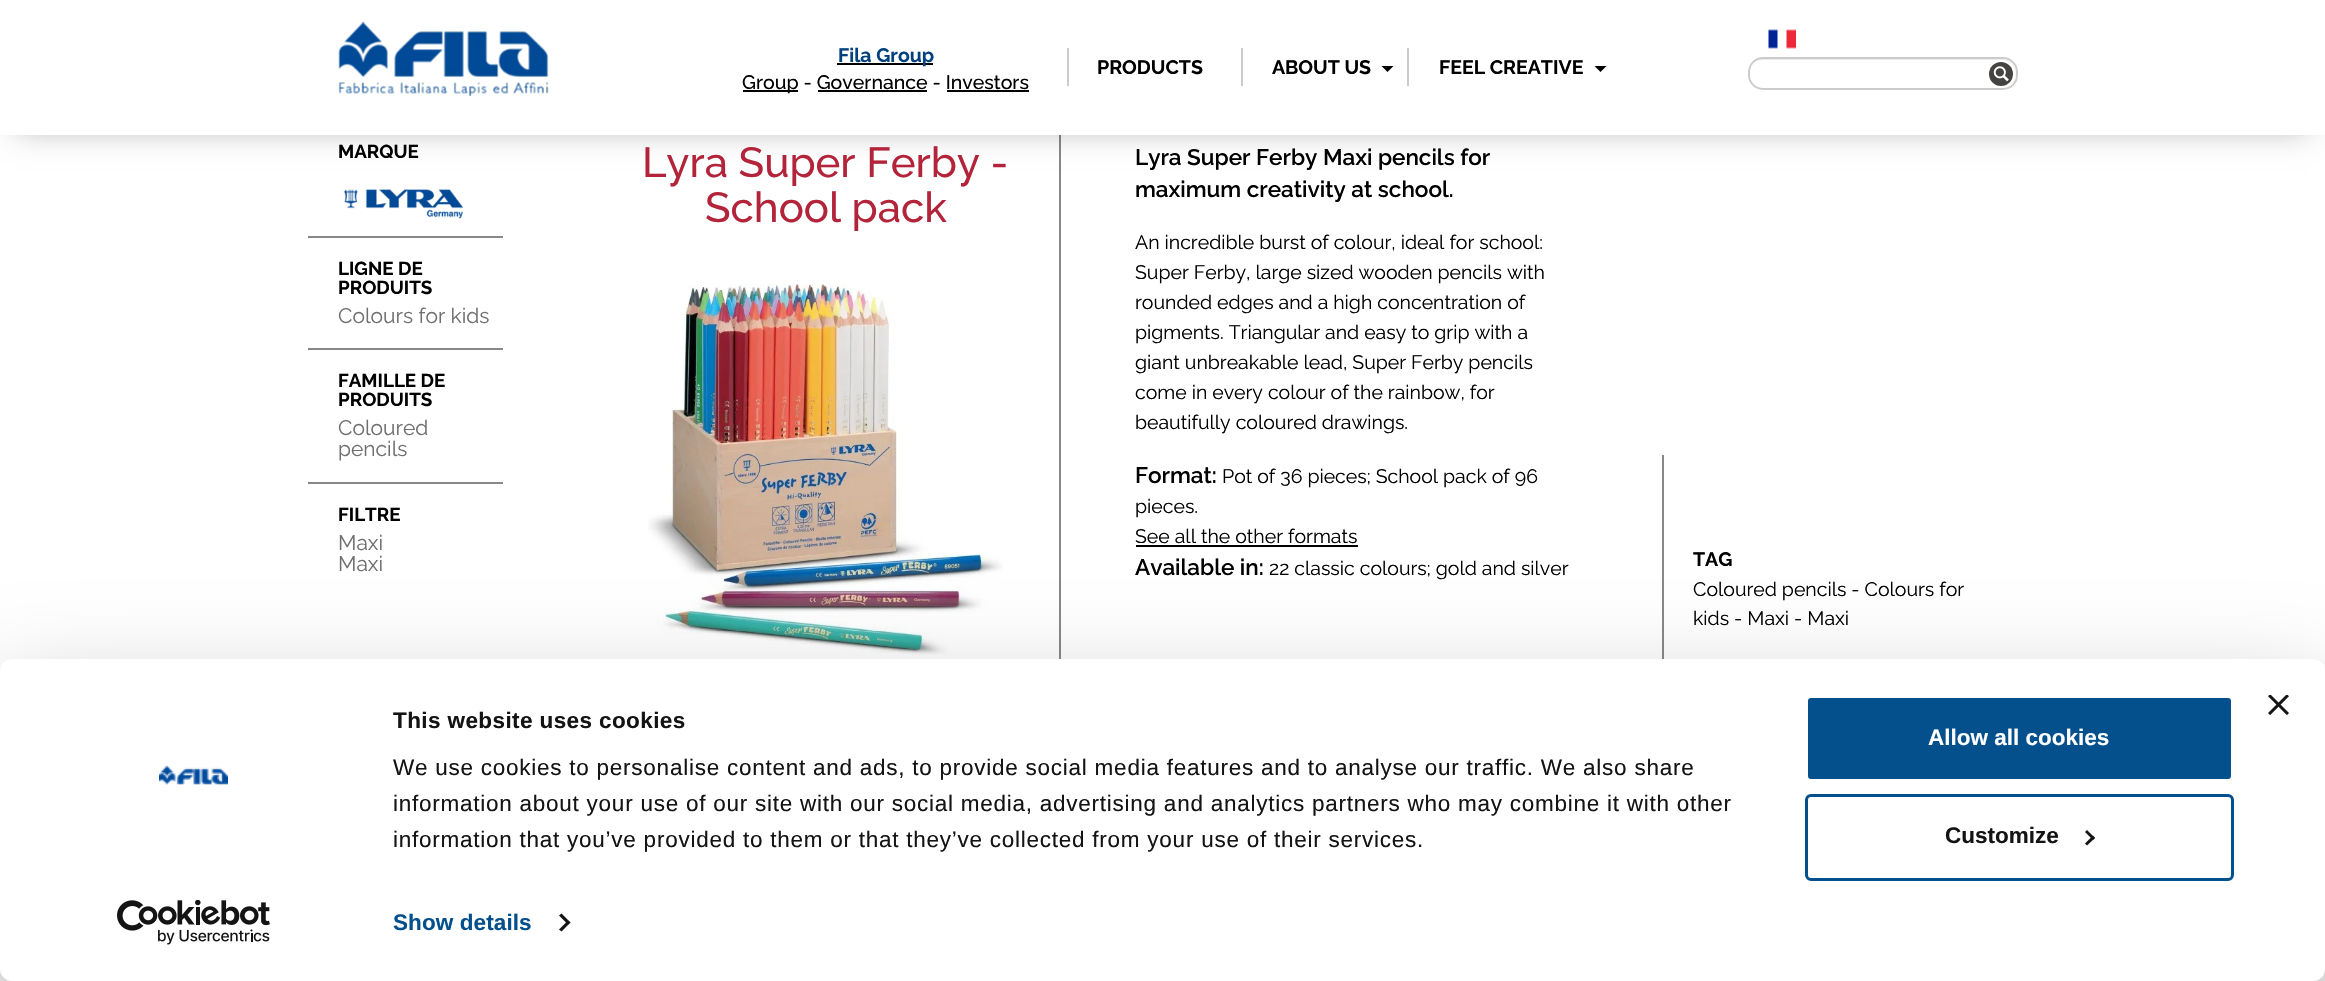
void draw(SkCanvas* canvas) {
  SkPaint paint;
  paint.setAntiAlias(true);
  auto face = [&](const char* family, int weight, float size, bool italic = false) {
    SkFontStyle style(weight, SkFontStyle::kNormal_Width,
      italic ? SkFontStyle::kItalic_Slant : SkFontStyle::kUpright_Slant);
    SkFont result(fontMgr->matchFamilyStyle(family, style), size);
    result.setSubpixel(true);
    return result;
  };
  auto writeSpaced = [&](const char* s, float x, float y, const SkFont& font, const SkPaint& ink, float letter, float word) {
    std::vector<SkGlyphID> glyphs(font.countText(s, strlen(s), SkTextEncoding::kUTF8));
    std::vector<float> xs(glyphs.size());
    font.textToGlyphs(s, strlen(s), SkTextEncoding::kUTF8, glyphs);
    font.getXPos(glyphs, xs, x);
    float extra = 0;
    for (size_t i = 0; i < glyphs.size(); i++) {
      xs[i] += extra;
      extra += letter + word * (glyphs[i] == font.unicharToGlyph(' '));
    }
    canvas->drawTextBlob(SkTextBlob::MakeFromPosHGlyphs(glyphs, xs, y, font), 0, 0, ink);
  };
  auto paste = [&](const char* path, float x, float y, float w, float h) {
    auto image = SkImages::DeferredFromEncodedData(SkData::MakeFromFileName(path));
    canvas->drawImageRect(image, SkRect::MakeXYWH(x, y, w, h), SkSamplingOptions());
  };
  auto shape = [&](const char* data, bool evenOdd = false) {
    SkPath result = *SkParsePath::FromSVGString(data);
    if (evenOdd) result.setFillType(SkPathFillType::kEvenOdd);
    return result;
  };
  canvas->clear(0xffffffff);
  paint.setColor(0xff888888);
  canvas->drawRect(SkRect::MakeXYWH(1059, 135, 2, 524), paint);
  paint.setColor(0x59000000);
  paint.setMaskFilter(SkMaskFilter::MakeBlur(kNormal_SkBlurStyle, 15));
  canvas->drawRect(SkRect::MakeXYWH(17, 26, 2292, 102), paint);
  paint.setMaskFilter(nullptr);
  paint.setColor(0xffffffff);
  canvas->drawRect(SkRect::MakeXYWH(0, 0, 2325, 135), paint);
  paste("img/1.png", 338, 22, 211, 74);
  {
    const struct { float x, y, w, h; SkColor color; } items[] = {
      {837, 63, 96, 2, 0xff000000},
      {743, 90, 55, 2, 0xff000000},
      {818, 90, 109, 2, 0xff000000},
      {947, 90, 82, 2, 0xff000000},
      {1067, 48, 2, 38, 0xffcccccc},
      {1241, 48, 2, 38, 0xffcccccc},
    };
    for (auto [x, y, w, h, color] : items) {
      paint.setColor(color);
      canvas->drawRect(SkRect::MakeXYWH(x, y, w, h), paint);
    }
  }
  paint.setColor(0xff000000);
  canvas->drawPath(shape("M1381.5 66H1393.5L1387.5 72Z"), paint);
  paint.setColor(0xffcccccc);
  canvas->drawRect(SkRect::MakeXYWH(1407, 48, 2, 38), paint);
  paint.setColor(0xff000000);
  canvas->drawPath(shape("M1594.5 66H1606.5L1600.5 72Z"), paint);
  paste("img/2.png", 1768, 29, 28, 20);
  paint.setColor(0xffececec);
  canvas->drawPath(shape("M1762 60H2002C2011 60 2016 67 2016 75V73C2016 65 2010 59 2002 59H1763C1757 59 1752 63 1750 68C1752 63 1756 60 1762 60Z"), paint);
  paint.setStroke(true);
  paint.setStrokeWidth(2);
  paint.setColor(0xffcccccc);
  canvas->drawRoundRect(SkRect::MakeXYWH(1749, 58, 268, 31), 14, 14, paint);
  paint.setStroke(false);
  paint.setColor(0xff454242);
  canvas->drawCircle(2001, 74, 12, paint);
  paste("img/3.png", 1993, 66, 16, 16);
  paint.setColor(0xff888888);
  canvas->drawRect(SkRect::MakeXYWH(308, 236, 195, 2), paint);
  paste("img/4.png", 344, 189, 119, 30);
  canvas->drawRect(SkRect::MakeXYWH(308, 348, 195, 2), paint);
  canvas->drawRect(SkRect::MakeXYWH(308, 482, 195, 2), paint);
  paste("img/5.png", 648, 284, 355, 371);
  {
    const struct { float x, y, w, h; SkColor color; } items[] = {
      {1136, 545, 222, 2, 0xff000000},
      {1662, 455, 2, 204, 0xff888888},
      {0, 969, 2325, 12, 0xfff8f8f8},
    };
    for (auto [x, y, w, h, color] : items) {
      paint.setColor(color);
      canvas->drawRect(SkRect::MakeXYWH(x, y, w, h), paint);
    }
  }
  paint.setColor(0x4d000000);
  paint.setMaskFilter(SkMaskFilter::MakeBlur(kNormal_SkBlurStyle, 52.5f));
  canvas->drawRoundRect(SkRect::MakeXYWH(0, 704, 2325, 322), 12, 12, paint);
  paint.setMaskFilter(nullptr);
  paint.setColor(0xffffffff);
  canvas->drawRoundRect(SkRect::MakeXYWH(0, 659, 2325, 322), 12, 12, paint);
  paste("img/6.png", 2268, 695, 21, 20);
  paste("img/7.png", 159, 765, 69, 20);
  paste("img/8.png", 117, 900, 153, 45);
  paint.setColor(0xff141414);
  canvas->drawPath(shape("M561.5 913.5L570.5 922.5L568 924.5L559 915.5Z"), paint);
  canvas->drawPath(shape("M568 920.5L570.5 922.5L561.5 931.5L559 929.5Z"), paint);
  paint.setColor(0xff04508c);
  canvas->drawRoundRect(SkRect::MakeXYWH(1806.5f, 696.5f, 426, 84), 4.5f, 4.5f, paint);
  paint.setStroke(true);
  paint.setStrokeWidth(3);
  paint.setColor(0xffffffff);
  canvas->drawRoundRect(SkRect::MakeXYWH(1806.5f, 696.5f, 426, 84), 4.5f, 4.5f, paint);
  paint.setColor(0xff04508c);
  canvas->drawRoundRect(SkRect::MakeXYWH(1806.5f, 795.5f, 426, 84), 4.5f, 4.5f, paint);
  paint.setStroke(false);
  paint.setColor(0xff141414);
  canvas->drawPath(shape("M2087 830L2095 838L2093 840L2085 832Z"), paint);
  canvas->drawPath(shape("M2093 835.5L2095 838L2087 845.5L2085 843.5Z"), paint);
  auto f0 = face("Raleway", 700, 19.5f);
  paint.setColor(0xff00417e);
  canvas->drawString("Fila Group", 838, 62, f0, paint);
  auto f1 = face("Raleway", 500, 19.5f);
  paint.setColor(0xff000000);
  canvas->drawString("Group - Governance - Investors", 742, 89, f1, paint);
  {
    const struct { const char* s; float x, y; } items[] = {
      {"PRODUCTS", 1097, 74},
      {"ABOUT US", 1272, 74},
      {"FEEL CREATIVE", 1439, 74},
    };
    for (auto [s, x, y] : items) {
      canvas->drawString(s, x, y, f0, paint);
    }
  }
  auto f2 = face("Raleway", 700, 18.75f);
  {
    const struct { const char* s; float x, y; } items[] = {
      {"MARQUE", 338, 158},
      {"LIGNE DE", 338, 275},
      {"PRODUITS", 338, 294},
    };
    for (auto [s, x, y] : items) {
      canvas->drawString(s, x, y, f2, paint);
    }
  }
  auto f3 = face("Raleway", 400, 21);
  paint.setColor(0xff6f6f6f);
  canvas->drawString("Colours for kids", 338, 323, f3, paint);
  paint.setColor(0xff000000);
  canvas->drawString("FAMILLE DE", 338, 387, f2, paint);
  canvas->drawString("PRODUITS", 338, 406, f2, paint);
  paint.setColor(0xff6f6f6f);
  canvas->drawString("Coloured", 338, 435, f3, paint);
  canvas->drawString("pencils", 338, 456, f3, paint);
  paint.setColor(0xff000000);
  canvas->drawString("FILTRE", 338, 521, f2, paint);
  paint.setColor(0xff6f6f6f);
  canvas->drawString("Maxi", 338, 550, f3, paint);
  canvas->drawString("Maxi", 338, 571, f3, paint);
  auto f4 = face("Raleway", 500, 42);
  paint.setColor(0xffb3243a);
  canvas->drawString("Lyra Super Ferby -", 642, 177, f4, paint);
  canvas->drawString("School pack", 705, 222, f4, paint);
  auto f5 = face("Raleway", 600, 22.5f);
  paint.setColor(0xff000000);
  canvas->drawString("Lyra Super Ferby Maxi pencils for", 1135, 165, f5, paint);
  canvas->drawString("maximum creativity at school.", 1135, 197, f5, paint);
  auto f6 = face("Raleway", 400, 19.5f);
  {
    const struct { const char* s; float x, y; } items[] = {
      {"An incredible burst of colour, ideal for school:", 1135, 249},
      {"Super Ferby, large sized wooden pencils with", 1135, 279},
      {"rounded edges and a high concentration of", 1135, 309},
      {"pigments. Triangular and easy to grip with a", 1135, 339},
      {"giant unbreakable lead, Super Ferby pencils", 1135, 369},
      {"come in every colour of the rainbow, for", 1135, 399},
      {"beautifully coloured drawings.", 1135, 429},
    };
    for (auto [s, x, y] : items) {
      canvas->drawString(s, x, y, f6, paint);
    }
  }
  canvas->drawString("Format:", 1135, 483, f5, paint);
  {
    const struct { const char* s; float x, y; } items[] = {
      {"Pot of 36 pieces; School pack of 96", 1222, 483},
      {"pieces.", 1135, 513},
      {"See all the other formats", 1135, 543},
    };
    for (auto [s, x, y] : items) {
      canvas->drawString(s, x, y, f6, paint);
    }
  }
  canvas->drawString("Available in:", 1135, 575, f5, paint);
  canvas->drawString("22 classic colours; gold and silver", 1269, 575, f6, paint);
  canvas->drawString("TAG", 1693, 566, f0, paint);
  canvas->drawString("Coloured pencils - Colours for", 1693, 596, f6, paint);
  canvas->drawString("kids - Maxi - Maxi", 1693, 625, f6, paint);
  auto f7 = face("Liberation Sans", 700, 22.5f);
  paint.setColor(0xff141414);
  writeSpaced("This website uses cookies", 393, 728, f7, paint, 0.4f, 0);
  auto f8 = face("Liberation Sans", 400, 22.5f);
  {
    const struct { const char* s; float x, y; } items[] = {
      {"We use cookies to personalise content and ads, to provide social media features and to analyse our traffic. We also share", 393, 775},
      {"information about your use of our site with our social media, advertising and analytics partners who may combine it with other", 393, 811},
      {"information that you’ve provided to them or that they’ve collected from your use of their services.", 393, 847},
    };
    for (auto [s, x, y] : items) {
      writeSpaced(s, x, y, f8, paint, 0.75f, 0);
    }
  }
  paint.setColor(0xff04508c);
  writeSpaced("Show details", 393, 930, f7, paint, 0.1f, 0);
  paint.setColor(0xffffffff);
  canvas->drawString("Allow all cookies", 1928, 745, f7, paint);
  paint.setColor(0xff141414);
  canvas->drawString("Customize", 1945, 843, f7, paint);
}
